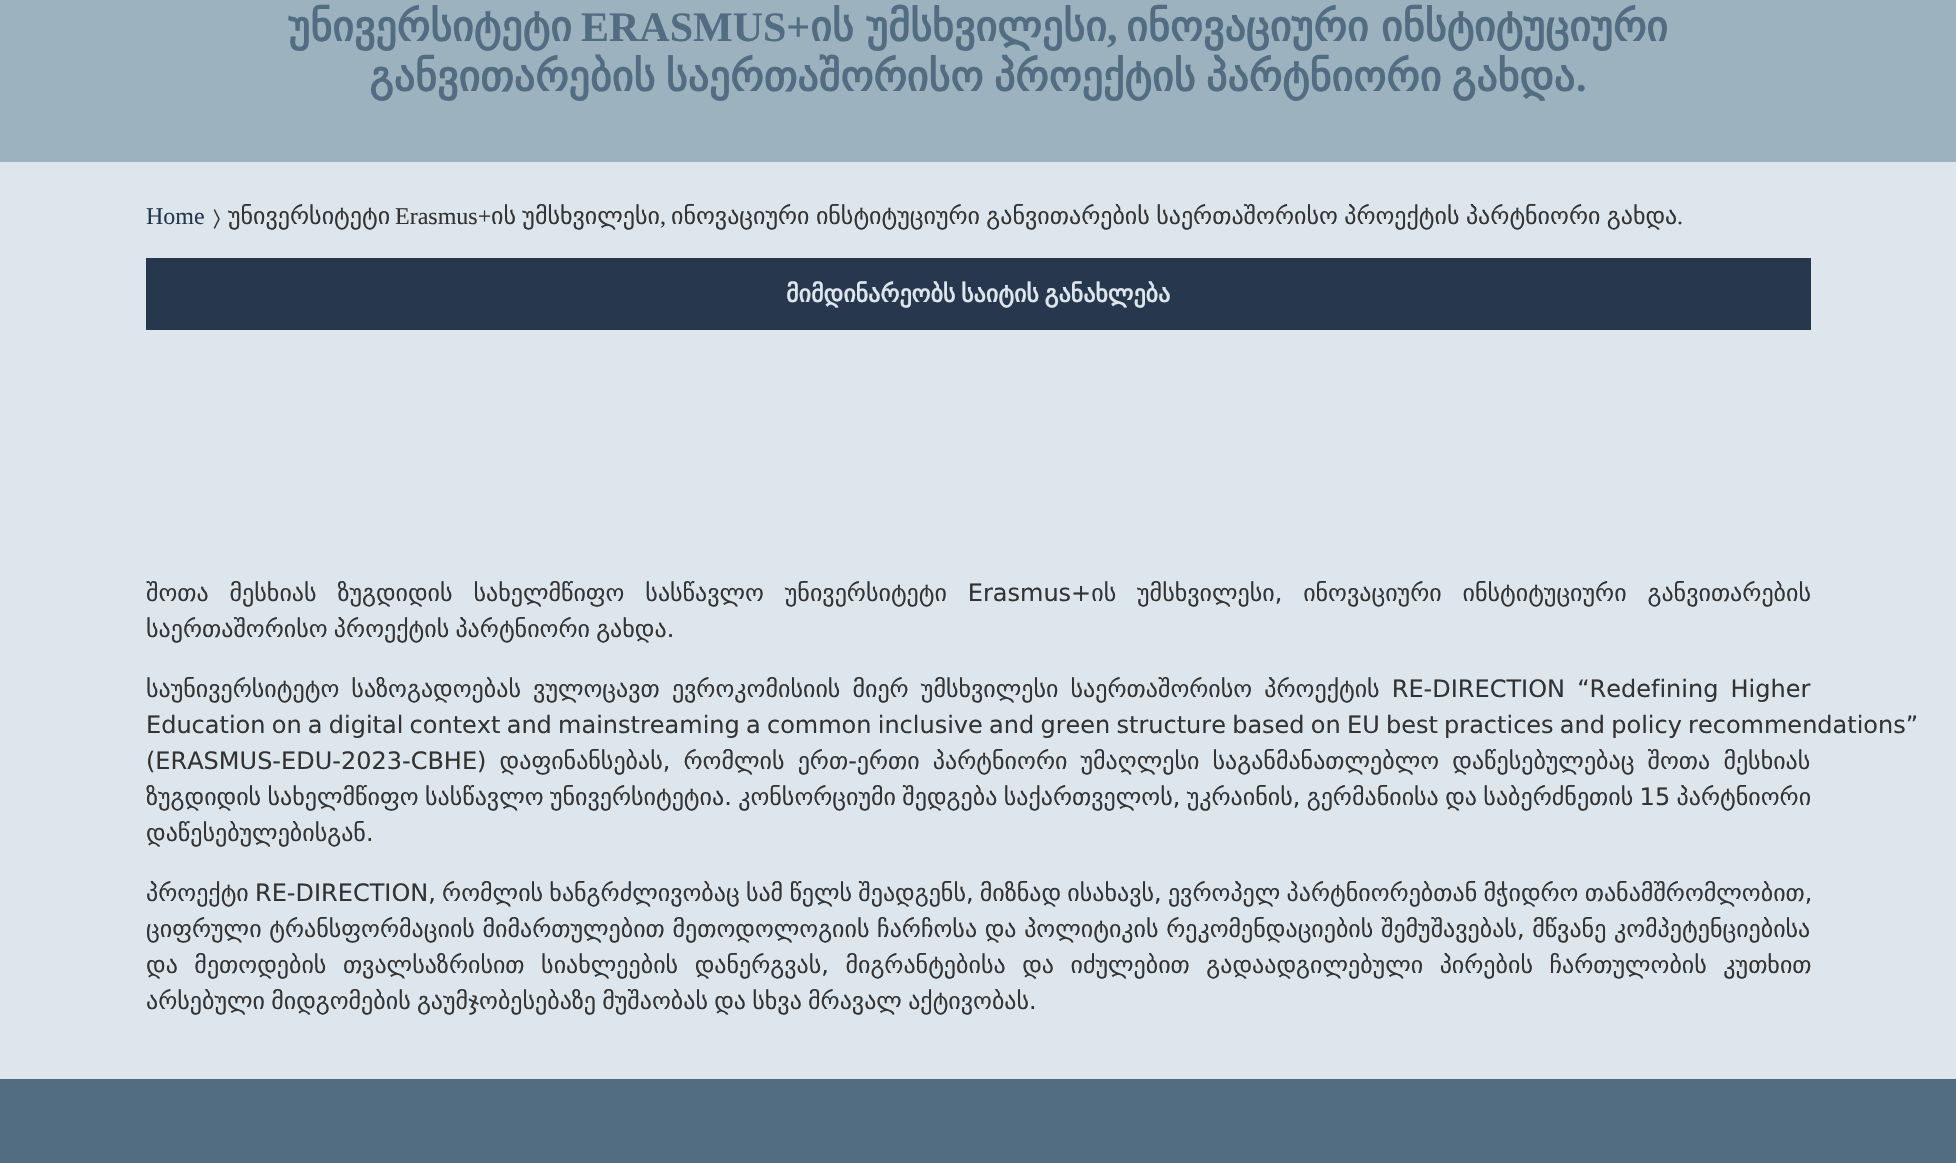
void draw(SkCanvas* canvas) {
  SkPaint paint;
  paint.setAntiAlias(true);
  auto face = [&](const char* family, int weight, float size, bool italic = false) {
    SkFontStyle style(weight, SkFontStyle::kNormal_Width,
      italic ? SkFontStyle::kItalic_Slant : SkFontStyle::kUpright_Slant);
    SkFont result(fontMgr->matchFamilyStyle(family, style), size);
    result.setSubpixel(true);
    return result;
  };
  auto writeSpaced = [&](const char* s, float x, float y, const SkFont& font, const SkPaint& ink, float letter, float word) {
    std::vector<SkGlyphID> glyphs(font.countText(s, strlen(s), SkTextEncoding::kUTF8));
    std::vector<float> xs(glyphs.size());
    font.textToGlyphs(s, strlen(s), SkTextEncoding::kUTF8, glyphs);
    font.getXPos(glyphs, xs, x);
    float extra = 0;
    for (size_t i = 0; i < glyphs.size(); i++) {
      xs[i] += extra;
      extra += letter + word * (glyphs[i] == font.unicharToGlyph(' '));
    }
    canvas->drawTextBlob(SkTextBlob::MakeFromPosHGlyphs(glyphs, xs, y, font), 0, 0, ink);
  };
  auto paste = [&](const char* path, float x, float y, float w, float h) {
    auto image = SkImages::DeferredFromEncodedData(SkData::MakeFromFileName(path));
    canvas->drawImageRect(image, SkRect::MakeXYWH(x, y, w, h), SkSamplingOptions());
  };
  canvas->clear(0xff9db2bf);
  paint.setColor(0xffdde6ed);
  canvas->drawRect(SkRect::MakeXYWH(0, 162, 1956, 917), paint);
  paste("img/1.png", 213, 209, 7, 20);
  paint.setColor(0xff27374d);
  canvas->drawRect(SkRect::MakeXYWH(146, 258, 1665, 72), paint);
  paint.setColor(0xff526d82);
  canvas->drawRect(SkRect::MakeXYWH(0, 1079, 1956, 84), paint);
  auto f0 = face("DejaVu Sans", 700, 42);
  canvas->drawString("უნივერსიტეტი", 288, 41, f0, paint);
  auto f1 = face("Liberation Serif", 700, 42);
  canvas->drawString("ERASMUS+", 581, 41, f1, paint);
  writeSpaced("ის უმსხვილესი", 810, 41, f0, paint, 0, -1);
  canvas->drawString(",", 1107, 41, f1, paint);
  writeSpaced("ინოვაციური ინსტიტუციური", 1126, 41, f0, paint, 0, -1);
  writeSpaced("განვითარების საერთაშორისო პროექტის პარტნიორი გახდა", 369, 91, f0, paint, 0, -3);
  canvas->drawString(".", 1576, 91, f1, paint);
  auto f2 = face("Liberation Serif", 400, 24);
  paint.setColor(0xff27374d);
  canvas->drawString("Home", 146, 224, f2, paint);
  auto f3 = face("DejaVu Sans", 400, 24);
  paint.setColor(0xff333333);
  canvas->drawString("უნივერსიტეტი", 228, 224, f3, paint);
  canvas->drawString("Erasmus+", 395, 224, f2, paint);
  writeSpaced("ის უმსხვილესი", 491, 224, f3, paint, 0, -1.25f);
  canvas->drawString(",", 660, 224, f2, paint);
  writeSpaced("ინოვაციური ინსტიტუციური განვითარების საერთაშორისო პროექტის პარტნიორი გახდა", 671, 224, f3, paint, 0, -1.25f);
  canvas->drawString(".", 1677, 224, f2, paint);
  auto f4 = face("DejaVu Sans", 700, 24);
  paint.setColor(0xffdde6ed);
  writeSpaced("მიმდინარეობს საიტის განახლება", 786, 302, f4, paint, 0, -2);
  paint.setColor(0xff333333);
  writeSpaced("შოთა მესხიას ზუგდიდის სახელმწიფო სასწავლო უნივერსიტეტი Erasmus+ის უმსხვილესი, ინოვაციური ინსტიტუციური განვითარების", 146, 601, f3, paint, 0, 13.25f);
  writeSpaced("საერთაშორისო პროექტის პარტნიორი გახდა.", 146, 637, f3, paint, 0, -1.4f);
  writeSpaced("საუნივერსიტეტო საზოგადოებას ვულოცავთ ევროკომისიის მიერ უმსხვილესი საერთაშორისო პროექტის RE-DIRECTION “Redefining Higher", 146, 697, f3, paint, 0, 4.5f);
  writeSpaced("Education on a digital context and mainstreaming a common inclusive and green structure based on EU best practices and policy recommendations”", 146, 733, f3, paint, 0, -1.4f);
  writeSpaced("(ERASMUS-EDU-2023-CBHE) დაფინანსებას, რომლის ერთ-ერთი პარტნიორი უმაღლესი საგანმანათლებლო დაწესებულებაც შოთა მესხიას", 146, 769, f3, paint, 0, 5.5f);
  writeSpaced("ზუგდიდის სახელმწიფო სასწავლო უნივერსიტეტია. კონსორციუმი შედგება საქართველოს, უკრაინის, გერმანიისა და საბერძნეთის 15 პარტნიორი", 146, 805, f3, paint, 0, -1.25f);
  canvas->drawString("დაწესებულებისგან.", 146, 841, f3, paint);
  writeSpaced("პროექტი RE-DIRECTION, რომლის ხანგრძლივობაც სამ წელს შეადგენს, მიზნად ისახავს, ევროპელ პარტნიორებთან მჭიდრო თანამშრომლობით,", 146, 901, f3, paint, 0, -1.4f);
  canvas->drawString("ციფრული ტრანსფორმაციის მიმართულებით მეთოდოლოგიის ჩარჩოსა და პოლიტიკის რეკომენდაციების შემუშავებას, მწვანე კომპეტენციებისა", 146, 937, f3, paint);
  writeSpaced("და მეთოდების თვალსაზრისით სიახლეების დანერგვას, მიგრანტებისა და იძულებით გადაადგილებული პირების ჩართულობის კუთხით", 146, 973, f3, paint, 0, 8.9f);
  writeSpaced("არსებული მიდგომების გაუმჯობესებაზე მუშაობას და სხვა მრავალ აქტივობას.", 146, 1009, f3, paint, 0, -1.4f);
}
